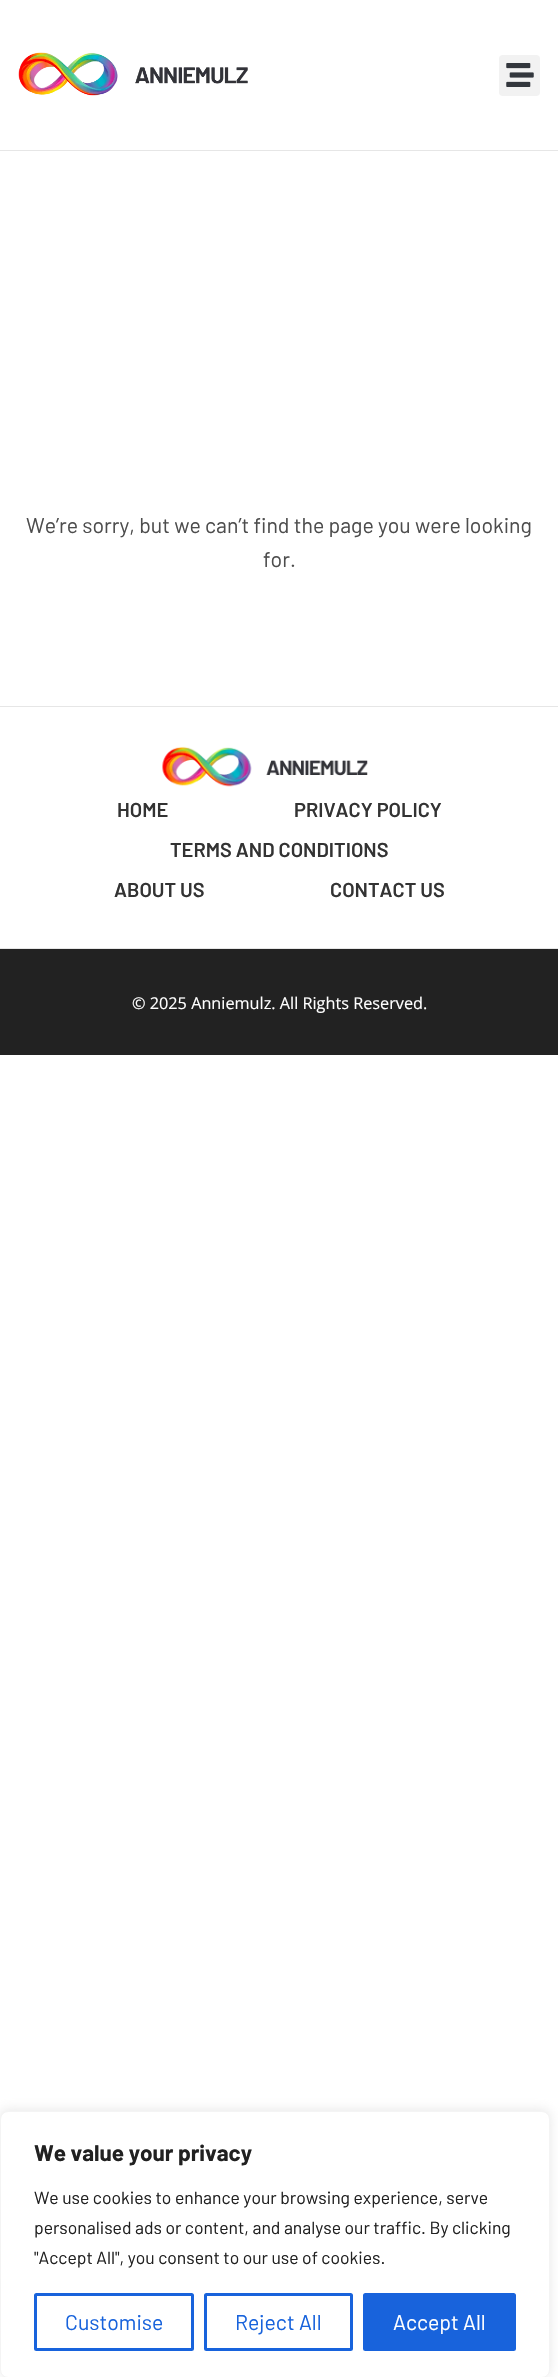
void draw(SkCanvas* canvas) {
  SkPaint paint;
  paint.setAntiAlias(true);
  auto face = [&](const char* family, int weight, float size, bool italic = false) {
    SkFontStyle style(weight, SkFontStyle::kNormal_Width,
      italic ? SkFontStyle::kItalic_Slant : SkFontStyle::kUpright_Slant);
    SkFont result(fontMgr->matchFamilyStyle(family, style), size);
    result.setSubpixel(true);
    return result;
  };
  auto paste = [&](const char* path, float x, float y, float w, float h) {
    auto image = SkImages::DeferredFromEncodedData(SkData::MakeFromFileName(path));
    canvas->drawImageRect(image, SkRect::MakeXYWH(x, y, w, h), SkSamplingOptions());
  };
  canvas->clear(0xffffffff);
  paint.setColor(0xffe6e6e6);
  canvas->drawRect(SkRect::MakeXYWH(0, 150, 558, 1), paint);
  paste("img/1.png", 18, 52, 230, 44);
  paint.setColor(0xfff2f2f2);
  canvas->drawRoundRect(SkRect::MakeXYWH(499, 55, 41, 41), 4, 4, paint);
  paste("img/2.png", 506, 63, 28, 24);
  paint.setColor(0xffe6e6e6);
  canvas->drawRect(SkRect::MakeXYWH(0, 706, 558, 1), paint);
  canvas->drawRect(SkRect::MakeXYWH(0, 948, 558, 1), paint);
  paste("img/3.png", 162, 746, 206, 41);
  paint.setColor(0xff222222);
  canvas->drawRect(SkRect::MakeXYWH(0, 949, 558, 106), paint);
  paint.setColor(0x4dacabab);
  paint.setMaskFilter(SkMaskFilter::MakeBlur(kNormal_SkBlurStyle, 6));
  canvas->drawRoundRect(SkRect::MakeXYWH(0, 2110, 550, 266), 8, 8, paint);
  paint.setMaskFilter(nullptr);
  paint.setColor(0xffffffff);
  canvas->drawRoundRect(SkRect::MakeXYWH(0.5f, 2111.5f, 549, 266), 7.5f, 7.5f, paint);
  paint.setStroke(true);
  paint.setStrokeWidth(1);
  paint.setColor(0xfff4f4f4);
  canvas->drawRoundRect(SkRect::MakeXYWH(0.5f, 2111.5f, 549, 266), 7.5f, 7.5f, paint);
  paint.setStrokeWidth(3);
  paint.setColor(0xff1863dc);
  canvas->drawRoundRect(SkRect::MakeXYWH(35.5f, 2294.5f, 157, 55), 1, 1, paint);
  canvas->drawRoundRect(SkRect::MakeXYWH(205.5f, 2294.5f, 146, 55), 1, 1, paint);
  paint.setStroke(false);
  canvas->drawRoundRect(SkRect::MakeXYWH(364.5f, 2294.5f, 150, 55), 1, 1, paint);
  paint.setStroke(true);
  canvas->drawRoundRect(SkRect::MakeXYWH(364.5f, 2294.5f, 150, 55), 1, 1, paint);
  auto f0 = face("Barlow", 400, 21.25f);
  paint.setStroke(false);
  paint.setColor(0xff4d4d4d);
  canvas->drawString("We’re sorry, but we can’t find the page you were looking", 26, 533, f0, paint);
  canvas->drawString("for.", 263, 567, f0, paint);
  auto f1 = face("Barlow", 600, 20);
  paint.setColor(0xff333333);
  {
    const struct { const char* s; float x, y; } items[] = {
      {"HOME", 117, 817},
      {"PRIVACY POLICY", 294, 817},
      {"TERMS AND CONDITIONS", 170, 857},
      {"ABOUT US", 114, 897},
      {"CONTACT US", 330, 897},
    };
    for (auto [s, x, y] : items) {
      canvas->drawString(s, x, y, f1, paint);
    }
  }
  auto f2 = face("Open Sans", 400, 16.25f);
  paint.setColor(0xffffffff);
  canvas->drawString("© 2025 Anniemulz. All Rights Reserved.", 132, 1009, f2, paint);
  auto f3 = face("Barlow", 700, 22.5f);
  paint.setColor(0xff212121);
  canvas->drawString("We value your privacy", 34, 2161, f3, paint);
  auto f4 = face("Barlow", 400, 17.5f);
  {
    const struct { const char* s; float x, y; } items[] = {
      {"We use cookies to enhance your browsing experience, serve", 34, 2204},
      {"personalised ads or content, and analyse our traffic. By clicking", 34, 2234},
      {"\"Accept All\", you consent to our use of cookies.", 34, 2264},
    };
    for (auto [s, x, y] : items) {
      canvas->drawString(s, x, y, f4, paint);
    }
  }
  paint.setColor(0xff1863dc);
  canvas->drawString("Customise", 65, 2330, f0, paint);
  canvas->drawString("Reject All", 235, 2330, f0, paint);
  paint.setColor(0xffffffff);
  canvas->drawString("Accept All", 393, 2330, f0, paint);
}
